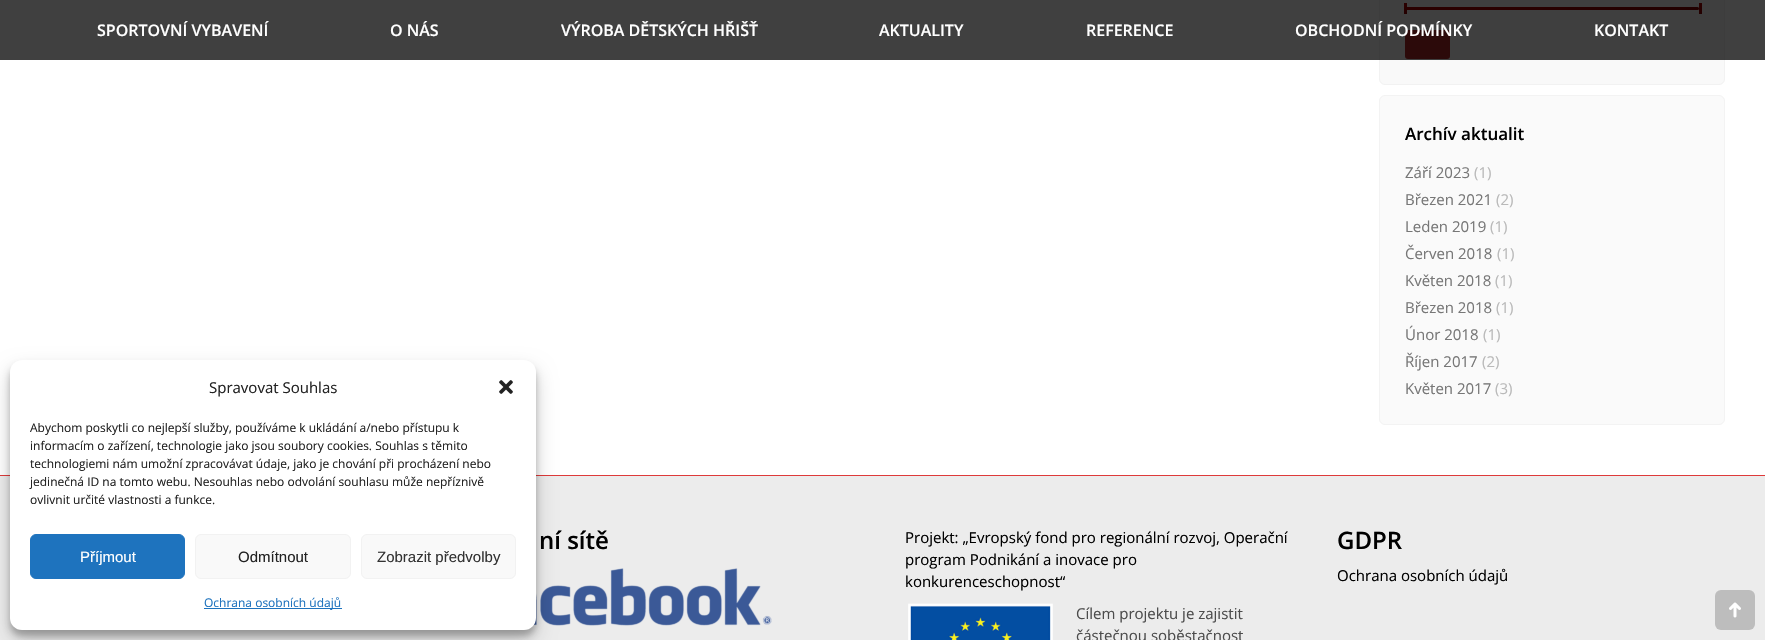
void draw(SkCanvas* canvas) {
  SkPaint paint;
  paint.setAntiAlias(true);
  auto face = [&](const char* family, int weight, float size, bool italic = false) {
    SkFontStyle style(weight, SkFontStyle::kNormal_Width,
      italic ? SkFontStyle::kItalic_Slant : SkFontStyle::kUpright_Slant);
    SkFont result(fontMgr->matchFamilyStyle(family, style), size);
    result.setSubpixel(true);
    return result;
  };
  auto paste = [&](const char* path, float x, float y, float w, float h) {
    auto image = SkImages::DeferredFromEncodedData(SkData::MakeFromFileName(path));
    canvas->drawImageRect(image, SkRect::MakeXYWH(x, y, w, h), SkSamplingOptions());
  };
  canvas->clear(0xffffffff);
  paint.setColor(0xfff9f9f9);
  canvas->drawRoundRect(SkRect::MakeXYWH(1379.5f, -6.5f, 345, 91), 5.5f, 5.5f, paint);
  paint.setStroke(true);
  paint.setStrokeWidth(1);
  paint.setColor(0xfff2f2f2);
  canvas->drawRoundRect(SkRect::MakeXYWH(1379.5f, -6.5f, 345, 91), 5.5f, 5.5f, paint);
  paint.setStroke(false);
  paint.setColor(0xffdfdfdf);
  canvas->drawRect(SkRect::MakeXYWH(1697, 7, 2, 3), paint);
  {
    const SkColor colors[] = {0xffa50000, 0xff820000};
    const float stops[] = {0.3f, 1};
    const SkPoint ends[] = {{1478, -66}, {1626, 83}};
    paint.setShader(SkGradientShader::MakeLinear(ends, colors, stops, 2, SkTileMode::kClamp));
    paint.setAlpha(255);
  }
  canvas->drawRoundRect(SkRect::MakeXYWH(1405, 7, 294, 3), 1.5f, 1.5f, paint);
  {
    const SkColor colors[] = {0xffa50000, 0xff820000};
    const float stops[] = {0.3f, 1};
    const SkPoint ends[] = {{1402, 5}, {1409, 12}};
    paint.setShader(SkGradientShader::MakeLinear(ends, colors, stops, 2, SkTileMode::kClamp));
    paint.setAlpha(255);
  }
  canvas->drawRect(SkRect::MakeXYWH(1404, 3, 3, 11), paint);
  {
    const SkColor colors[] = {0xffa50000, 0xff820000};
    const float stops[] = {0.3f, 1};
    const SkPoint ends[] = {{1697, 5}, {1704, 12}};
    paint.setShader(SkGradientShader::MakeLinear(ends, colors, stops, 2, SkTileMode::kClamp));
    paint.setAlpha(255);
  }
  canvas->drawRect(SkRect::MakeXYWH(1699, 3, 3, 11), paint);
  paint.setShader(nullptr);
  paint.setColor(0xffad2727);
  canvas->drawRoundRect(SkRect::MakeXYWH(1405, 30, 45, 29), 3, 3, paint);
  {
    const struct { float x, y, w, h; SkColor color; } items[] = {
      {0, 0, 1765, 60, 0xbf000000},
      {0, 476, 1765, 164, 0xffececec},
      {0, 475, 1765, 1, 0xffde3a3a},
    };
    for (auto [x, y, w, h, color] : items) {
      paint.setColor(color);
      canvas->drawRect(SkRect::MakeXYWH(x, y, w, h), paint);
    }
  }
  paste("img/2.png", 532, 568, 240, 58);
  paint.setColor(0x3b000000);
  paint.setMaskFilter(SkMaskFilter::MakeBlur(kNormal_SkBlurStyle, 3));
  canvas->drawRoundRect(SkRect::MakeXYWH(10, 366, 526, 270), 12, 12, paint);
  paint.setMaskFilter(nullptr);
  paint.setColor(0x30000000);
  paint.setMaskFilter(SkMaskFilter::MakeBlur(kNormal_SkBlurStyle, 10));
  canvas->drawRoundRect(SkRect::MakeXYWH(10, 370, 526, 270), 12, 12, paint);
  paint.setMaskFilter(nullptr);
  paint.setColor(0xffffffff);
  canvas->drawRoundRect(SkRect::MakeXYWH(10, 360, 526, 270), 12, 12, paint);
  paste("img/1.png", 499, 380, 14, 14);
  paint.setColor(0xff1e73be);
  canvas->drawRoundRect(SkRect::MakeXYWH(30.5f, 534.5f, 154, 44), 5.5f, 5.5f, paint);
  paint.setStroke(true);
  canvas->drawRoundRect(SkRect::MakeXYWH(30.5f, 534.5f, 154, 44), 5.5f, 5.5f, paint);
  paint.setStroke(false);
  paint.setColor(0xfff9f9f9);
  canvas->drawRoundRect(SkRect::MakeXYWH(195.5f, 534.5f, 155, 44), 5.5f, 5.5f, paint);
  paint.setStroke(true);
  paint.setColor(0xfff2f2f2);
  canvas->drawRoundRect(SkRect::MakeXYWH(195.5f, 534.5f, 155, 44), 5.5f, 5.5f, paint);
  paint.setStroke(false);
  paint.setColor(0xfff9f9f9);
  canvas->drawRoundRect(SkRect::MakeXYWH(361.5f, 534.5f, 154, 44), 5.5f, 5.5f, paint);
  paint.setStroke(true);
  paint.setColor(0xfff2f2f2);
  canvas->drawRoundRect(SkRect::MakeXYWH(361.5f, 534.5f, 154, 44), 5.5f, 5.5f, paint);
  paint.setStroke(false);
  paint.setColor(0xff1e73be);
  canvas->drawRect(SkRect::MakeXYWH(204, 608, 138, 1), paint);
  paint.setColor(0xfffafafa);
  canvas->drawRoundRect(SkRect::MakeXYWH(1379.5f, 95.5f, 345, 329), 5.5f, 5.5f, paint);
  paint.setStroke(true);
  paint.setColor(0xfff3f3f3);
  canvas->drawRoundRect(SkRect::MakeXYWH(1379.5f, 95.5f, 345, 329), 5.5f, 5.5f, paint);
  paste("img/3.png", 908, 603, 145, 37);
  paint.setStroke(false);
  paint.setColor(0x33000000);
  canvas->drawRoundRect(SkRect::MakeXYWH(1715, 590, 40, 40), 6, 6, paint);
  paste("img/4.png", 1729, 602, 12, 16);
  auto f0 = face("Open Sans", 600, 16);
  paint.setColor(0xffffffff);
  {
    const struct { const char* s; float x, y; } items[] = {
      {"SPORTOVNÍ VYBAVENÍ", 97, 36},
      {"O NÁS", 390, 36},
      {"VÝROBA DĚTSKÝCH HŘIŠŤ", 561, 36},
      {"AKTUALITY", 879, 36},
      {"REFERENCE", 1086, 36},
      {"OBCHODNÍ PODMÍNKY", 1295, 36},
      {"KONTAKT", 1594, 36},
    };
    for (auto [s, x, y] : items) {
      canvas->drawString(s, x, y, f0, paint);
    }
  }
  auto f1 = face("Open Sans", 400, 15);
  paint.setColor(0xff222222);
  canvas->drawString("Spravovat Souhlas", 209, 393, f1, paint);
  auto f2 = face("Open Sans", 400, 12);
  {
    const struct { const char* s; float x, y; } items[] = {
      {"Abychom poskytli co nejlepší služby, používáme k ukládání a/nebo přístupu k", 30, 432},
      {"informacím o zařízení, technologie jako jsou soubory cookies. Souhlas s těmito", 30, 450},
      {"technologiemi nám umožní zpracovávat údaje, jako je chování při procházení nebo", 30, 468},
      {"jedinečná ID na tomto webu. Nesouhlas nebo odvolání souhlasu může nepříznivě", 30, 486},
      {"ovlivnit určité vlastnosti a funkce.", 30, 504},
    };
    for (auto [s, x, y] : items) {
      canvas->drawString(s, x, y, f2, paint);
    }
  }
  auto f3 = face("Liberation Sans", 400, 15);
  paint.setColor(0xffffffff);
  canvas->drawString("Příjmout", 80, 562, f3, paint);
  paint.setColor(0xff222222);
  canvas->drawString("Odmítnout", 238, 562, f3, paint);
  paint.setColor(0xff333333);
  canvas->drawString("Zobrazit předvolby", 377, 562, f3, paint);
  paint.setColor(0xff1e73be);
  canvas->drawString("Ochrana osobních údajů", 204, 607, f2, paint);
  auto f4 = face("Open Sans", 600, 17);
  paint.setColor(0xff000000);
  canvas->drawString("Archív aktualit", 1405, 140, f4, paint);
  paint.setColor(0xff777777);
  canvas->drawString("Září 2023", 1405, 178, f1, paint);
  paint.setColor(0xffb9b9b9);
  canvas->drawString("(1)", 1474, 178, f1, paint);
  paint.setColor(0xff777777);
  canvas->drawString("Březen 2021", 1405, 205, f1, paint);
  paint.setColor(0xffb9b9b9);
  canvas->drawString("(2)", 1496, 205, f1, paint);
  paint.setColor(0xff777777);
  canvas->drawString("Leden 2019", 1405, 232, f1, paint);
  paint.setColor(0xffb9b9b9);
  canvas->drawString("(1)", 1490, 232, f1, paint);
  paint.setColor(0xff777777);
  canvas->drawString("Červen 2018", 1405, 259, f1, paint);
  paint.setColor(0xffb9b9b9);
  canvas->drawString("(1)", 1497, 259, f1, paint);
  paint.setColor(0xff777777);
  canvas->drawString("Květen 2018", 1405, 286, f1, paint);
  paint.setColor(0xffb9b9b9);
  canvas->drawString("(1)", 1495, 286, f1, paint);
  paint.setColor(0xff777777);
  canvas->drawString("Březen 2018", 1405, 313, f1, paint);
  paint.setColor(0xffb9b9b9);
  canvas->drawString("(1)", 1496, 313, f1, paint);
  paint.setColor(0xff777777);
  canvas->drawString("Únor 2018", 1405, 340, f1, paint);
  paint.setColor(0xffb9b9b9);
  canvas->drawString("(1)", 1483, 340, f1, paint);
  paint.setColor(0xff777777);
  canvas->drawString("Říjen 2017", 1405, 367, f1, paint);
  paint.setColor(0xffb9b9b9);
  canvas->drawString("(2)", 1482, 367, f1, paint);
  paint.setColor(0xff777777);
  canvas->drawString("Květen 2017", 1405, 394, f1, paint);
  paint.setColor(0xffb9b9b9);
  canvas->drawString("(3)", 1495, 394, f1, paint);
  auto f5 = face("Open Sans", 600, 24);
  paint.setColor(0xff000000);
  canvas->drawString("ní sítě", 539, 549, f5, paint);
  {
    const struct { const char* s; float x, y; } items[] = {
      {"Projekt: „Evropský fond pro regionální rozvoj, Operační", 905, 543},
      {"program Podnikání a inovace pro", 905, 565},
      {"konkurenceschopnost“", 905, 587},
    };
    for (auto [s, x, y] : items) {
      canvas->drawString(s, x, y, f1, paint);
    }
  }
  paint.setColor(0xff4c4c4c);
  canvas->drawString("Cílem projektu je zajistit", 1076, 619, f1, paint);
  canvas->drawString("částečnou soběstačnost", 1076, 641, f1, paint);
  paint.setColor(0xff000000);
  canvas->drawString("GDPR", 1337, 549, f5, paint);
  canvas->drawString("Ochrana osobních údajů", 1337, 581, f1, paint);
}
